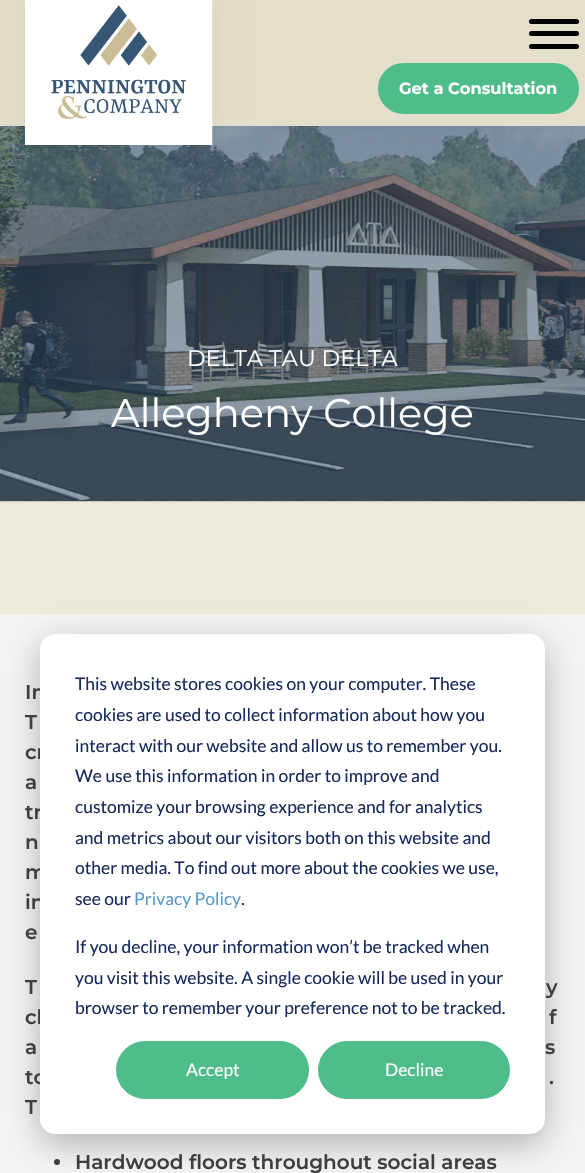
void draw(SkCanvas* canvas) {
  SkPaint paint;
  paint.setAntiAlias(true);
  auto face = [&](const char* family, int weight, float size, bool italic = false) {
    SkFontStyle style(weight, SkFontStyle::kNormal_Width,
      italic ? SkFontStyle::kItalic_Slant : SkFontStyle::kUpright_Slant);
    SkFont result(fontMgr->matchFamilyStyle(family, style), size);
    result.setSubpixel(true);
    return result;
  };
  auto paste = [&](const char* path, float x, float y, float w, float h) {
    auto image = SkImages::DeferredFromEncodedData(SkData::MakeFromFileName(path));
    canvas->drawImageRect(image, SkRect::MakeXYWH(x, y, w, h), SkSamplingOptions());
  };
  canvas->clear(0xffedeadc);
  paste("img/2.png", 0, 126, 585, 376);
  paint.setColor(0x0d000000);
  paint.setMaskFilter(SkMaskFilter::MakeBlur(kNormal_SkBlurStyle, 6));
  canvas->drawRect(SkRect::MakeXYWH(0, 0, 585, 126), paint);
  paint.setMaskFilter(nullptr);
  paint.setColor(0xffe4dfca);
  canvas->drawRect(SkRect::MakeXYWH(0, 0, 585, 126), paint);
  paint.setColor(0x0d000000);
  paint.setMaskFilter(SkMaskFilter::MakeBlur(kNormal_SkBlurStyle, 14.5f));
  canvas->drawRect(SkRect::MakeXYWH(25, -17, 188, 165), paint);
  paint.setMaskFilter(nullptr);
  paste("img/1.png", 25, 0, 188, 145);
  paint.setColor(0xff000000);
  canvas->drawRoundRect(SkRect::MakeXYWH(529, 31, 50, 5), 2.5f, 2.5f, paint);
  canvas->drawRoundRect(SkRect::MakeXYWH(529, 19, 50, 5), 2.5f, 2.5f, paint);
  canvas->drawRoundRect(SkRect::MakeXYWH(529, 44, 50, 5), 2.5f, 2.5f, paint);
  paint.setColor(0xff4fbd8a);
  canvas->drawRoundRect(SkRect::MakeXYWH(379.5f, 64.5f, 198, 48), 24, 24, paint);
  paint.setStroke(true);
  paint.setStrokeWidth(3);
  canvas->drawRoundRect(SkRect::MakeXYWH(379.5f, 64.5f, 198, 48), 24, 24, paint);
  paint.setStroke(false);
  paint.setColor(0xfff6f5f3);
  canvas->drawRect(SkRect::MakeXYWH(0, 614, 585, 559), paint);
  paint.setColor(0xff3e3e3e);
  canvas->drawCircle(57, 1162, 3, paint);
  paint.setColor(0x47000000);
  paint.setMaskFilter(SkMaskFilter::MakeBlur(kNormal_SkBlurStyle, 17.5f));
  canvas->drawRoundRect(SkRect::MakeXYWH(40, 644, 505, 500), 15, 15, paint);
  paint.setMaskFilter(nullptr);
  auto f0 = face("Montserrat", 700, 16.25f);
  paint.setColor(0xffffffff);
  canvas->drawString("Get a Consultation", 399, 94, f0, paint);
  auto f1 = face("Montserrat", 400, 22.5f);
  canvas->drawString("DELTA TAU DELTA", 187, 366, f1, paint);
  auto f2 = face("Montserrat", 400, 40);
  canvas->drawString("Allegheny College", 111, 427, f2, paint);
  auto f3 = face("Montserrat", 600, 20);
  paint.setColor(0xff3e3e3e);
  {
    const struct { const char* s; float x, y; } items[] = {
      {"In", 25, 699},
      {"T", 25, 729},
      {"cr", 25, 759},
      {"a", 25, 789},
      {"tr", 25, 819},
      {"n", 25, 849},
      {"m", 25, 879},
      {"in", 25, 909},
      {"e", 25, 939},
      {"T", 25, 994},
      {"y", 546, 994},
      {"cl", 25, 1024},
      {"f", 549, 1024},
      {"a", 25, 1054},
      {"s", 545, 1054},
      {"to", 25, 1084},
      {".", 549, 1084},
      {"T", 25, 1114},
      {"Hardwood floors throughout social areas", 75, 1169},
    };
    for (auto [s, x, y] : items) {
      canvas->drawString(s, x, y, f3, paint);
    }
  }
  paint.setColor(0xffffffff);
  canvas->drawRoundRect(SkRect::MakeXYWH(40, 634, 505, 500), 15, 15, paint);
  auto f4 = face("Lato", 400, 17.5f);
  paint.setColor(0xff15295a);
  {
    const struct { const char* s; float x, y; } items[] = {
      {"This website stores cookies on your computer. These", 75, 690},
      {"cookies are used to collect information about how you", 75, 721},
      {"interact with our website and allow us to remember you.", 75, 752},
      {"We use this information in order to improve and", 75, 782},
      {"customize your browsing experience and for analytics", 75, 813},
      {"and metrics about our visitors both on this website and", 75, 844},
      {"other media. To find out more about the cookies we use,", 75, 874},
      {"see our", 75, 905},
    };
    for (auto [s, x, y] : items) {
      canvas->drawString(s, x, y, f4, paint);
    }
  }
  paint.setColor(0xff5999c9);
  canvas->drawString("Privacy Policy", 134, 905, f4, paint);
  paint.setColor(0xff15295a);
  {
    const struct { const char* s; float x, y; } items[] = {
      {".", 241, 905},
      {"If you decline, your information won’t be tracked when", 75, 953},
      {"you visit this website. A single cookie will be used in your", 75, 984},
      {"browser to remember your preference not to be tracked.", 75, 1014},
    };
    for (auto [s, x, y] : items) {
      canvas->drawString(s, x, y, f4, paint);
    }
  }
  paint.setColor(0xff4fbd8a);
  canvas->drawRoundRect(SkRect::MakeXYWH(116.5f, 1041.5f, 192, 57), 28.5f, 28.5f, paint);
  paint.setStroke(true);
  paint.setStrokeWidth(1);
  canvas->drawRoundRect(SkRect::MakeXYWH(116.5f, 1041.5f, 192, 57), 28.5f, 28.5f, paint);
  paint.setStroke(false);
  paint.setColor(0xffffffff);
  canvas->drawString("Accept", 186, 1076, f4, paint);
  paint.setColor(0xff4fbd8a);
  canvas->drawRoundRect(SkRect::MakeXYWH(318.5f, 1041.5f, 191, 57), 28.5f, 28.5f, paint);
  paint.setStroke(true);
  canvas->drawRoundRect(SkRect::MakeXYWH(318.5f, 1041.5f, 191, 57), 28.5f, 28.5f, paint);
  paint.setStroke(false);
  paint.setColor(0xffffffff);
  canvas->drawString("Decline", 385, 1076, f4, paint);
}
